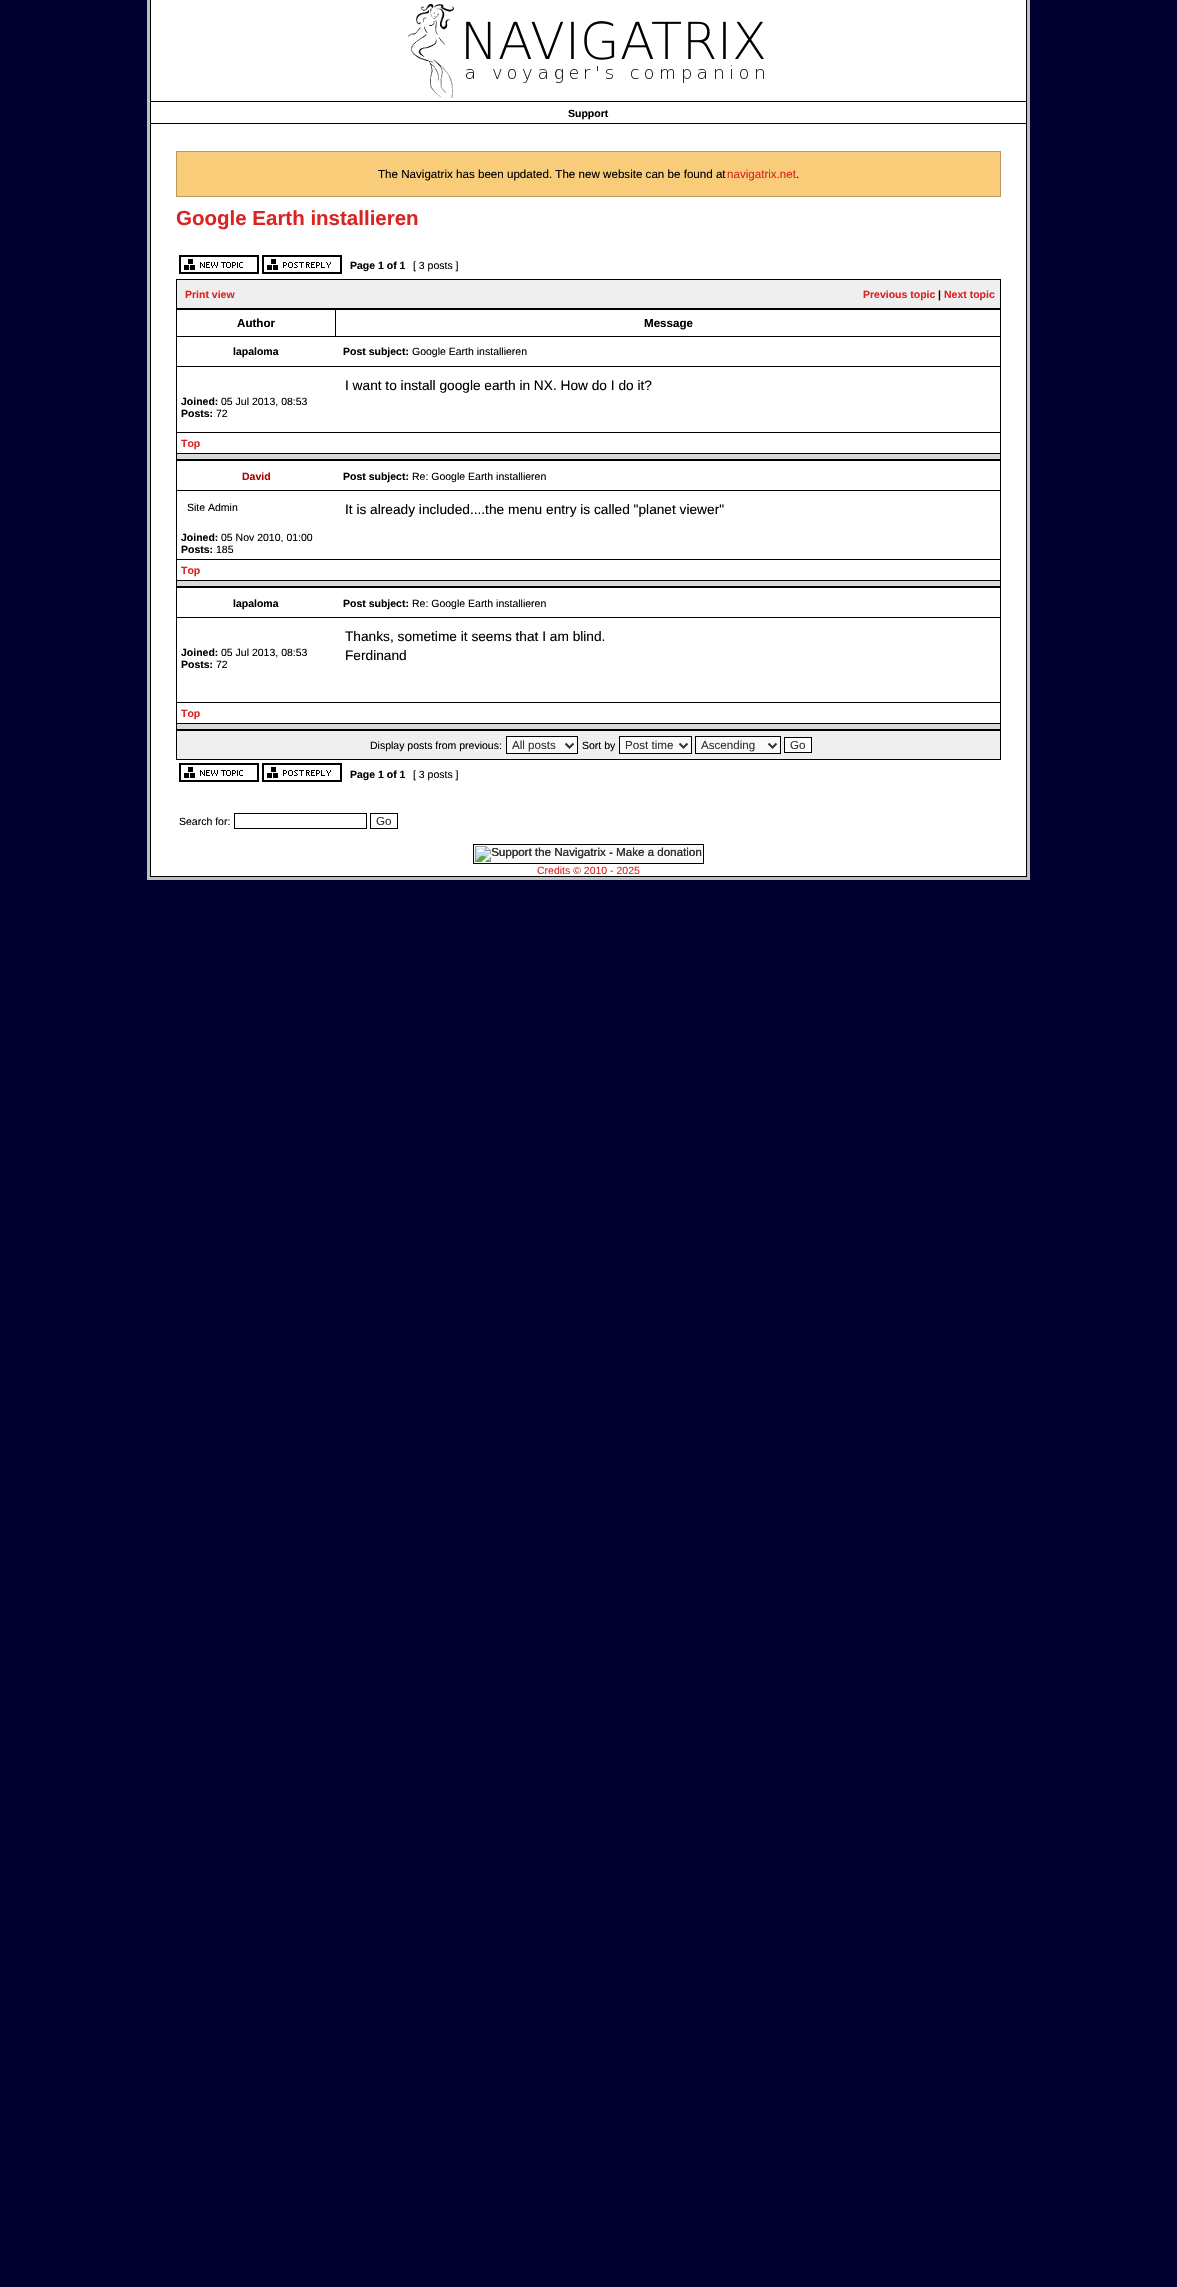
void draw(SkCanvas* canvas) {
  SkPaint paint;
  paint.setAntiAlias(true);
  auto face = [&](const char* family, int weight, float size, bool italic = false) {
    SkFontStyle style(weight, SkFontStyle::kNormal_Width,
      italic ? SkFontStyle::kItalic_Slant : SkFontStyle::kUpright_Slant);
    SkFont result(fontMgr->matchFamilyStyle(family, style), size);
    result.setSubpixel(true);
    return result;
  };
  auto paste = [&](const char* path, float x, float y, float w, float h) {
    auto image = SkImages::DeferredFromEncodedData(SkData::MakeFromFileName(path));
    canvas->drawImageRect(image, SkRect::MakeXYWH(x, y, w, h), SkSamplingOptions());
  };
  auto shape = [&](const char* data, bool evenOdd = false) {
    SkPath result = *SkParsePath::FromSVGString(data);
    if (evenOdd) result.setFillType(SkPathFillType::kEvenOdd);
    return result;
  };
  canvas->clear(0xff000030);
  {
    const struct { float x, y, w, h; SkColor color; } items[] = {
      {151, 0, 875, 876, 0xffffffff},
      {1027, 0, 3, 880, 0xffbfbfbf},
      {147, 877, 883, 3, 0xffbfbfbf},
      {147, 0, 3, 880, 0xffbfbfbf},
      {1026, 0, 1, 877, 0xff000000},
      {150, 876, 877, 1, 0xff000000},
      {150, 0, 1, 877, 0xff000000},
    };
    for (auto [x, y, w, h, color] : items) {
      paint.setColor(color);
      canvas->drawRect(SkRect::MakeXYWH(x, y, w, h), paint);
    }
  }
  paste("img/1.png", 408, 4, 356, 94);
  canvas->drawRect(SkRect::MakeXYWH(151, 101, 875, 1), paint);
  canvas->drawRect(SkRect::MakeXYWH(151, 123, 875, 1), paint);
  paint.setColor(0xfff9cc79);
  canvas->drawRect(SkRect::MakeXYWH(176.5f, 151.5f, 824, 45), paint);
  paint.setStroke(true);
  paint.setStrokeWidth(1);
  paint.setColor(0xffbb9860);
  canvas->drawRect(SkRect::MakeXYWH(176.5f, 151.5f, 824, 45), paint);
  paste("img/2.png", 179, 255, 80, 19);
  paste("img/3.png", 262, 255, 80, 19);
  paint.setStroke(false);
  {
    const struct { float x, y, w, h; SkColor color; } items[] = {
      {176, 279, 825, 481, 0xff000000},
      {177, 280, 823, 28, 0xffefefef},
      {177, 310, 158, 26, 0xffffffff},
      {336, 310, 664, 26, 0xffffffff},
      {177, 337, 823, 29, 0xffffffff},
      {177, 367, 823, 65, 0xffffffff},
      {177, 433, 823, 20, 0xffffffff},
      {177, 454, 823, 5, 0xffd9d9d9},
      {177, 461, 823, 29, 0xffffffff},
      {177, 491, 823, 68, 0xffffffff},
      {177, 560, 823, 20, 0xffffffff},
      {177, 581, 823, 5, 0xffd9d9d9},
      {177, 588, 823, 29, 0xffffffff},
      {177, 618, 823, 84, 0xffffffff},
      {177, 703, 823, 20, 0xffffffff},
      {177, 724, 823, 5, 0xffd9d9d9},
      {177, 731, 823, 28, 0xffefefef},
    };
    for (auto [x, y, w, h, color] : items) {
      paint.setColor(color);
      canvas->drawRect(SkRect::MakeXYWH(x, y, w, h), paint);
    }
  }
  paint.setColor(0xfffafafa);
  canvas->drawRect(SkRect::MakeXYWH(506.5f, 736.5f, 71, 17), paint);
  paint.setStroke(true);
  paint.setColor(0xff000000);
  canvas->drawRect(SkRect::MakeXYWH(506.5f, 736.5f, 71, 17), paint);
  paint.setStrokeWidth(2);
  paint.setColor(0xff333333);
  canvas->drawPath(shape("M565.5 743.5L569.5 747.5L573.5 743.5"), paint);
  paint.setStroke(false);
  paint.setColor(0xfffafafa);
  canvas->drawRect(SkRect::MakeXYWH(619.5f, 736.5f, 72, 17), paint);
  paint.setStroke(true);
  paint.setStrokeWidth(1);
  paint.setColor(0xff000000);
  canvas->drawRect(SkRect::MakeXYWH(619.5f, 736.5f, 72, 17), paint);
  paint.setStrokeWidth(2);
  paint.setColor(0xff333333);
  canvas->drawPath(shape("M679.5 743.5L683.5 747.5L687.5 743.5"), paint);
  paint.setStroke(false);
  paint.setColor(0xfffafafa);
  canvas->drawRect(SkRect::MakeXYWH(695.5f, 736.5f, 85, 17), paint);
  paint.setStroke(true);
  paint.setStrokeWidth(1);
  paint.setColor(0xff000000);
  canvas->drawRect(SkRect::MakeXYWH(695.5f, 736.5f, 85, 17), paint);
  paint.setStrokeWidth(2);
  paint.setColor(0xff333333);
  canvas->drawPath(shape("M768.5 743.5L772.5 747.5L776.5 743.5"), paint);
  paint.setStroke(false);
  paint.setColor(0xffffffff);
  canvas->drawRect(SkRect::MakeXYWH(784.5f, 737.5f, 27, 15), paint);
  paint.setStroke(true);
  paint.setStrokeWidth(1);
  paint.setColor(0xff000000);
  canvas->drawRect(SkRect::MakeXYWH(784.5f, 737.5f, 27, 15), paint);
  paste("img/2.png", 179, 763, 80, 19);
  paste("img/3.png", 262, 763, 80, 19);
  canvas->drawRect(SkRect::MakeXYWH(234.5f, 813.5f, 132, 15), paint);
  canvas->drawRect(SkRect::MakeXYWH(370.5f, 813.5f, 27, 15), paint);
  paint.setStroke(false);
  paint.setColor(0xfffafafa);
  canvas->drawRect(SkRect::MakeXYWH(473.5f, 844.5f, 230, 19), paint);
  paint.setStroke(true);
  paint.setColor(0xff000000);
  canvas->drawRect(SkRect::MakeXYWH(473.5f, 844.5f, 230, 19), paint);
  paste("img/4.png", 475, 846, 226, 16);
  auto f0 = face("Liberation Sans", 700, 10.5f);
  paint.setStroke(false);
  canvas->drawString("Support", 568, 117, f0, paint);
  auto f1 = face("Liberation Sans", 400, 11.6f);
  canvas->drawString("The Navigatrix has been updated. The new website can be found at", 378, 178, f1, paint);
  paint.setColor(0xffdc2323);
  canvas->drawString("navigatrix.net", 727, 178, f1, paint);
  paint.setColor(0xff000000);
  canvas->drawString(".", 796, 178, f1, paint);
  auto f2 = face("Liberation Sans", 700, 20.5f);
  paint.setColor(0xffdc2323);
  canvas->drawString("Google Earth installieren", 176, 225, f2, paint);
  paint.setColor(0xff000000);
  canvas->drawString("Page 1 of 1", 350, 269, f0, paint);
  auto f3 = face("Liberation Sans", 400, 10.5f);
  canvas->drawString("[ 3 posts ]", 413, 269, f3, paint);
  paint.setColor(0xffdc2323);
  canvas->drawString("Print view", 185, 298, f0, paint);
  canvas->drawString("Previous topic", 863, 298, f0, paint);
  paint.setColor(0xff000000);
  canvas->drawString("|", 938, 298, f0, paint);
  paint.setColor(0xffdc2323);
  canvas->drawString("Next topic", 944, 298, f0, paint);
  auto f4 = face("Liberation Sans", 700, 11.6f);
  paint.setColor(0xff000000);
  canvas->drawString("Author", 237, 327, f4, paint);
  canvas->drawString("Message", 644, 327, f4, paint);
  canvas->drawString("lapaloma", 233, 355, f0, paint);
  canvas->drawString("Post subject:", 343, 355, f0, paint);
  canvas->drawString("Google Earth installieren", 412, 355, f3, paint);
  auto f5 = face("Liberation Sans", 400, 13.7f);
  canvas->drawString("I want to install google earth in NX. How do I do it?", 345, 390, f5, paint);
  canvas->drawString("Joined:", 181, 405, f0, paint);
  canvas->drawString("05 Jul 2013, 08:53", 221, 405, f3, paint);
  canvas->drawString("Posts:", 181, 417, f0, paint);
  canvas->drawString("72", 216, 417, f3, paint);
  paint.setColor(0xffdc2323);
  canvas->drawString("Top", 181, 447, f0, paint);
  paint.setColor(0xffaa0000);
  canvas->drawString("David", 242, 480, f0, paint);
  paint.setColor(0xff000000);
  canvas->drawString("Post subject:", 343, 480, f0, paint);
  canvas->drawString("Re: Google Earth installieren", 412, 480, f3, paint);
  canvas->drawString("Site Admin", 187, 511, f3, paint);
  canvas->drawString("Joined:", 181, 541, f0, paint);
  canvas->drawString("05 Nov 2010, 01:00", 221, 541, f3, paint);
  canvas->drawString("Posts:", 181, 553, f0, paint);
  canvas->drawString("185", 216, 553, f3, paint);
  canvas->drawString("It is already included....the menu entry is called \"planet viewer\"", 345, 514, f5, paint);
  paint.setColor(0xffdc2323);
  canvas->drawString("Top", 181, 574, f0, paint);
  paint.setColor(0xff000000);
  canvas->drawString("lapaloma", 233, 607, f0, paint);
  canvas->drawString("Post subject:", 343, 607, f0, paint);
  canvas->drawString("Re: Google Earth installieren", 412, 607, f3, paint);
  canvas->drawString("Joined:", 181, 656, f0, paint);
  canvas->drawString("05 Jul 2013, 08:53", 221, 656, f3, paint);
  canvas->drawString("Posts:", 181, 668, f0, paint);
  canvas->drawString("72", 216, 668, f3, paint);
  canvas->drawString("Thanks, sometime it seems that I am blind.", 345, 641, f5, paint);
  canvas->drawString("Ferdinand", 345, 660, f5, paint);
  paint.setColor(0xffdc2323);
  canvas->drawString("Top", 181, 717, f0, paint);
  paint.setColor(0xff000000);
  canvas->drawString("Display posts from previous:", 370, 749, f3, paint);
  paint.setColor(0xff333333);
  canvas->drawString("All posts", 512, 749, f1, paint);
  paint.setColor(0xff000000);
  canvas->drawString("Sort by", 582, 749, f3, paint);
  paint.setColor(0xff333333);
  {
    const struct { const char* s; float x, y; } items[] = {
      {"Post time", 625, 749},
      {"Ascending", 701, 749},
      {"Go", 790, 749},
    };
    for (auto [s, x, y] : items) {
      canvas->drawString(s, x, y, f1, paint);
    }
  }
  paint.setColor(0xff000000);
  canvas->drawString("Page 1 of 1", 350, 778, f0, paint);
  canvas->drawString("[ 3 posts ]", 413, 778, f3, paint);
  canvas->drawString("Search for:", 179, 825, f3, paint);
  paint.setColor(0xff333333);
  canvas->drawString("Go", 376, 825, f1, paint);
  canvas->drawString("Support the Navigatrix - Make a donation", 491, 856, f1, paint);
  paint.setColor(0xffdc2323);
  canvas->drawString("Credits © 2010 - 2025", 537, 874, f3, paint);
}
